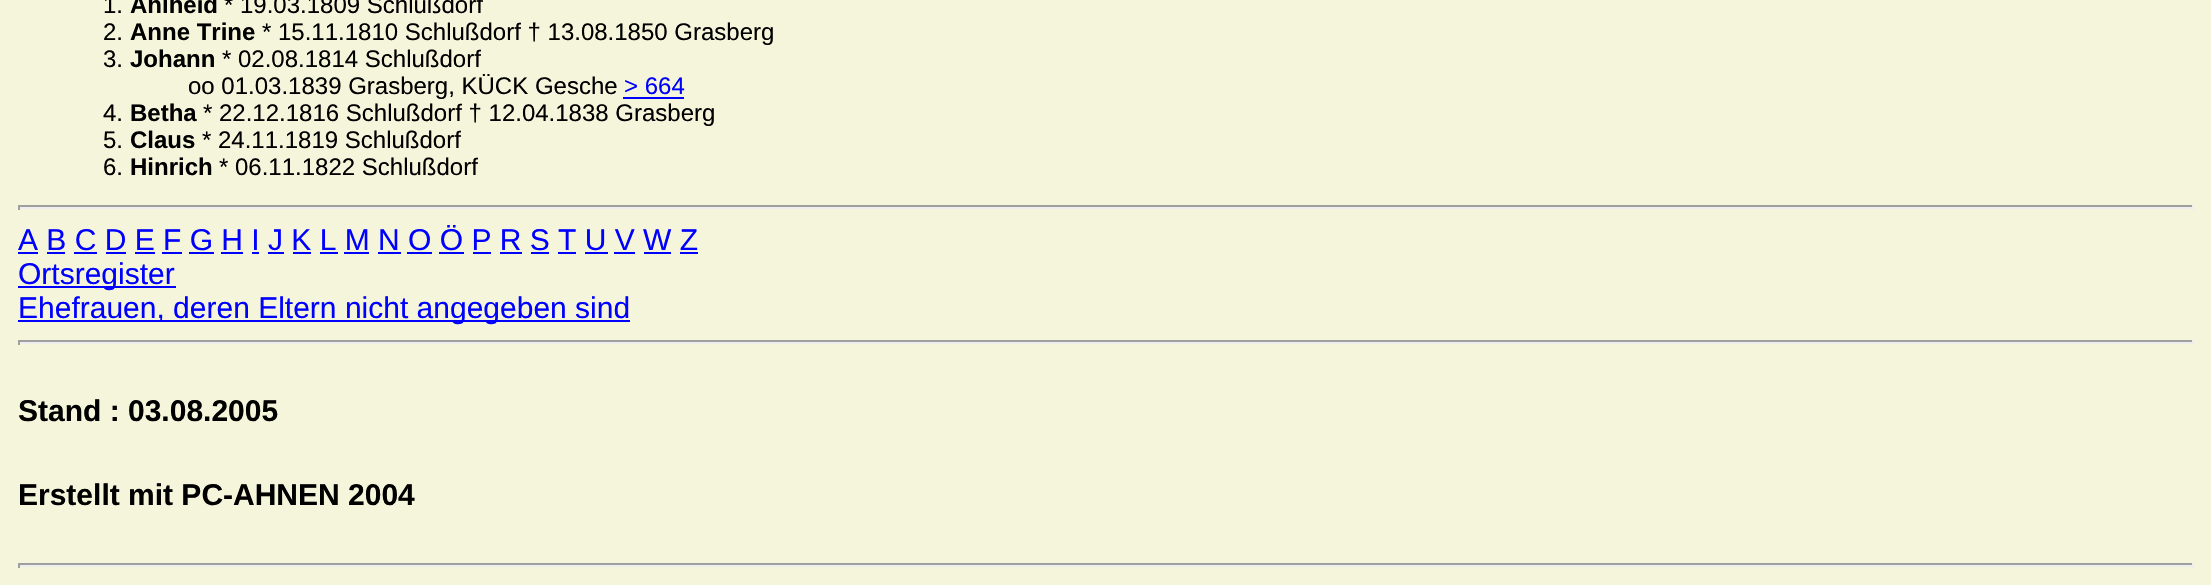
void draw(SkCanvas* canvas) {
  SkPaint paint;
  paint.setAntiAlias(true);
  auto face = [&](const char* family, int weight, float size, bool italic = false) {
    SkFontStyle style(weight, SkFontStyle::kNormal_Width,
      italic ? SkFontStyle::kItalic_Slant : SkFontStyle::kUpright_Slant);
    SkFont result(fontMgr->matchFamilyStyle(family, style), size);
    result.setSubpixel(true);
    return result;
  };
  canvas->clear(0xfff5f5dc);
  {
    const struct { float x, y, w, h; SkColor color; } items[] = {
      {623, 97, 61, 2, 0xff0000ff},
      {18, 205, 2176, 2, 0xff9f9f9f},
      {2192, 205, 2, 5, 0xffeeeeee},
      {18, 207, 2176, 2, 0xffeeeeee},
      {18, 205, 2, 5, 0xff9f9f9f},
      {18, 252, 20, 2, 0xff0000ff},
      {47, 252, 18, 2, 0xff0000ff},
      {74, 252, 23, 2, 0xff0000ff},
      {106, 252, 20, 2, 0xff0000ff},
      {135, 252, 20, 2, 0xff0000ff},
      {162, 252, 20, 2, 0xff0000ff},
      {189, 252, 25, 2, 0xff0000ff},
      {221, 252, 22, 2, 0xff0000ff},
      {252, 252, 7, 2, 0xff0000ff},
      {268, 252, 16, 2, 0xff0000ff},
      {293, 252, 18, 2, 0xff0000ff},
      {320, 252, 18, 2, 0xff0000ff},
      {344, 252, 25, 2, 0xff0000ff},
      {378, 252, 23, 2, 0xff0000ff},
      {407, 252, 25, 2, 0xff0000ff},
      {439, 252, 25, 2, 0xff0000ff},
      {473, 252, 18, 2, 0xff0000ff},
      {500, 252, 22, 2, 0xff0000ff},
      {531, 252, 18, 2, 0xff0000ff},
      {558, 252, 18, 2, 0xff0000ff},
      {585, 252, 23, 2, 0xff0000ff},
      {614, 252, 21, 2, 0xff0000ff},
      {644, 252, 27, 2, 0xff0000ff},
      {680, 252, 18, 2, 0xff0000ff},
      {18, 286, 158, 2, 0xff0000ff},
      {18, 320, 612, 2, 0xff0000ff},
      {18, 340, 2176, 2, 0xff9f9f9f},
      {2192, 340, 2, 5, 0xffeeeeee},
      {18, 342, 2176, 2, 0xffeeeeee},
      {18, 340, 2, 5, 0xff9f9f9f},
      {18, 563, 2176, 2, 0xff9f9f9f},
      {2192, 563, 2, 5, 0xffeeeeee},
      {18, 565, 2176, 2, 0xffeeeeee},
      {18, 563, 2, 5, 0xff9f9f9f},
    };
    for (auto [x, y, w, h, color] : items) {
      paint.setColor(color);
      canvas->drawRect(SkRect::MakeXYWH(x, y, w, h), paint);
    }
  }
  auto f0 = face("Liberation Sans", 400, 24);
  paint.setColor(0xff000000);
  canvas->drawString("1.", 103, 13, f0, paint);
  auto f1 = face("Liberation Sans", 700, 24);
  canvas->drawString("Ahlheid", 130, 13, f1, paint);
  canvas->drawString("* 19.03.1809 Schlußdorf", 224, 13, f0, paint);
  canvas->drawString("2.", 103, 40, f0, paint);
  canvas->drawString("Anne Trine", 130, 40, f1, paint);
  canvas->drawString("* 15.11.1810 Schlußdorf † 13.08.1850 Grasberg", 262, 40, f0, paint);
  canvas->drawString("3.", 103, 67, f0, paint);
  canvas->drawString("Johann", 130, 67, f1, paint);
  canvas->drawString("* 02.08.1814 Schlußdorf", 222, 67, f0, paint);
  canvas->drawString("oo 01.03.1839 Grasberg, KÜCK Gesche", 188, 94, f0, paint);
  paint.setColor(0xff0000ff);
  canvas->drawString("> 664", 624, 94, f0, paint);
  paint.setColor(0xff000000);
  canvas->drawString("4.", 103, 121, f0, paint);
  canvas->drawString("Betha", 130, 121, f1, paint);
  canvas->drawString("* 22.12.1816 Schlußdorf † 12.04.1838 Grasberg", 203, 121, f0, paint);
  canvas->drawString("5.", 103, 148, f0, paint);
  canvas->drawString("Claus", 130, 148, f1, paint);
  canvas->drawString("* 24.11.1819 Schlußdorf", 202, 148, f0, paint);
  canvas->drawString("6.", 103, 175, f0, paint);
  canvas->drawString("Hinrich", 130, 175, f1, paint);
  canvas->drawString("* 06.11.1822 Schlußdorf", 219, 175, f0, paint);
  auto f2 = face("Liberation Sans", 400, 30);
  paint.setColor(0xff0000ff);
  {
    const struct { const char* s; float x, y; } items[] = {
      {"A B C D E F G H I J K L M N O Ö P R S T U V W Z", 18, 250},
      {"Ortsregister", 18, 284},
      {"Ehefrauen, deren Eltern nicht angegeben sind", 18, 318},
    };
    for (auto [s, x, y] : items) {
      canvas->drawString(s, x, y, f2, paint);
    }
  }
  auto f3 = face("Liberation Sans", 700, 30);
  paint.setColor(0xff000000);
  canvas->drawString("Stand : 03.08.2005", 18, 421, f3, paint);
  canvas->drawString("Erstellt mit PC-AHNEN 2004", 18, 505, f3, paint);
}
